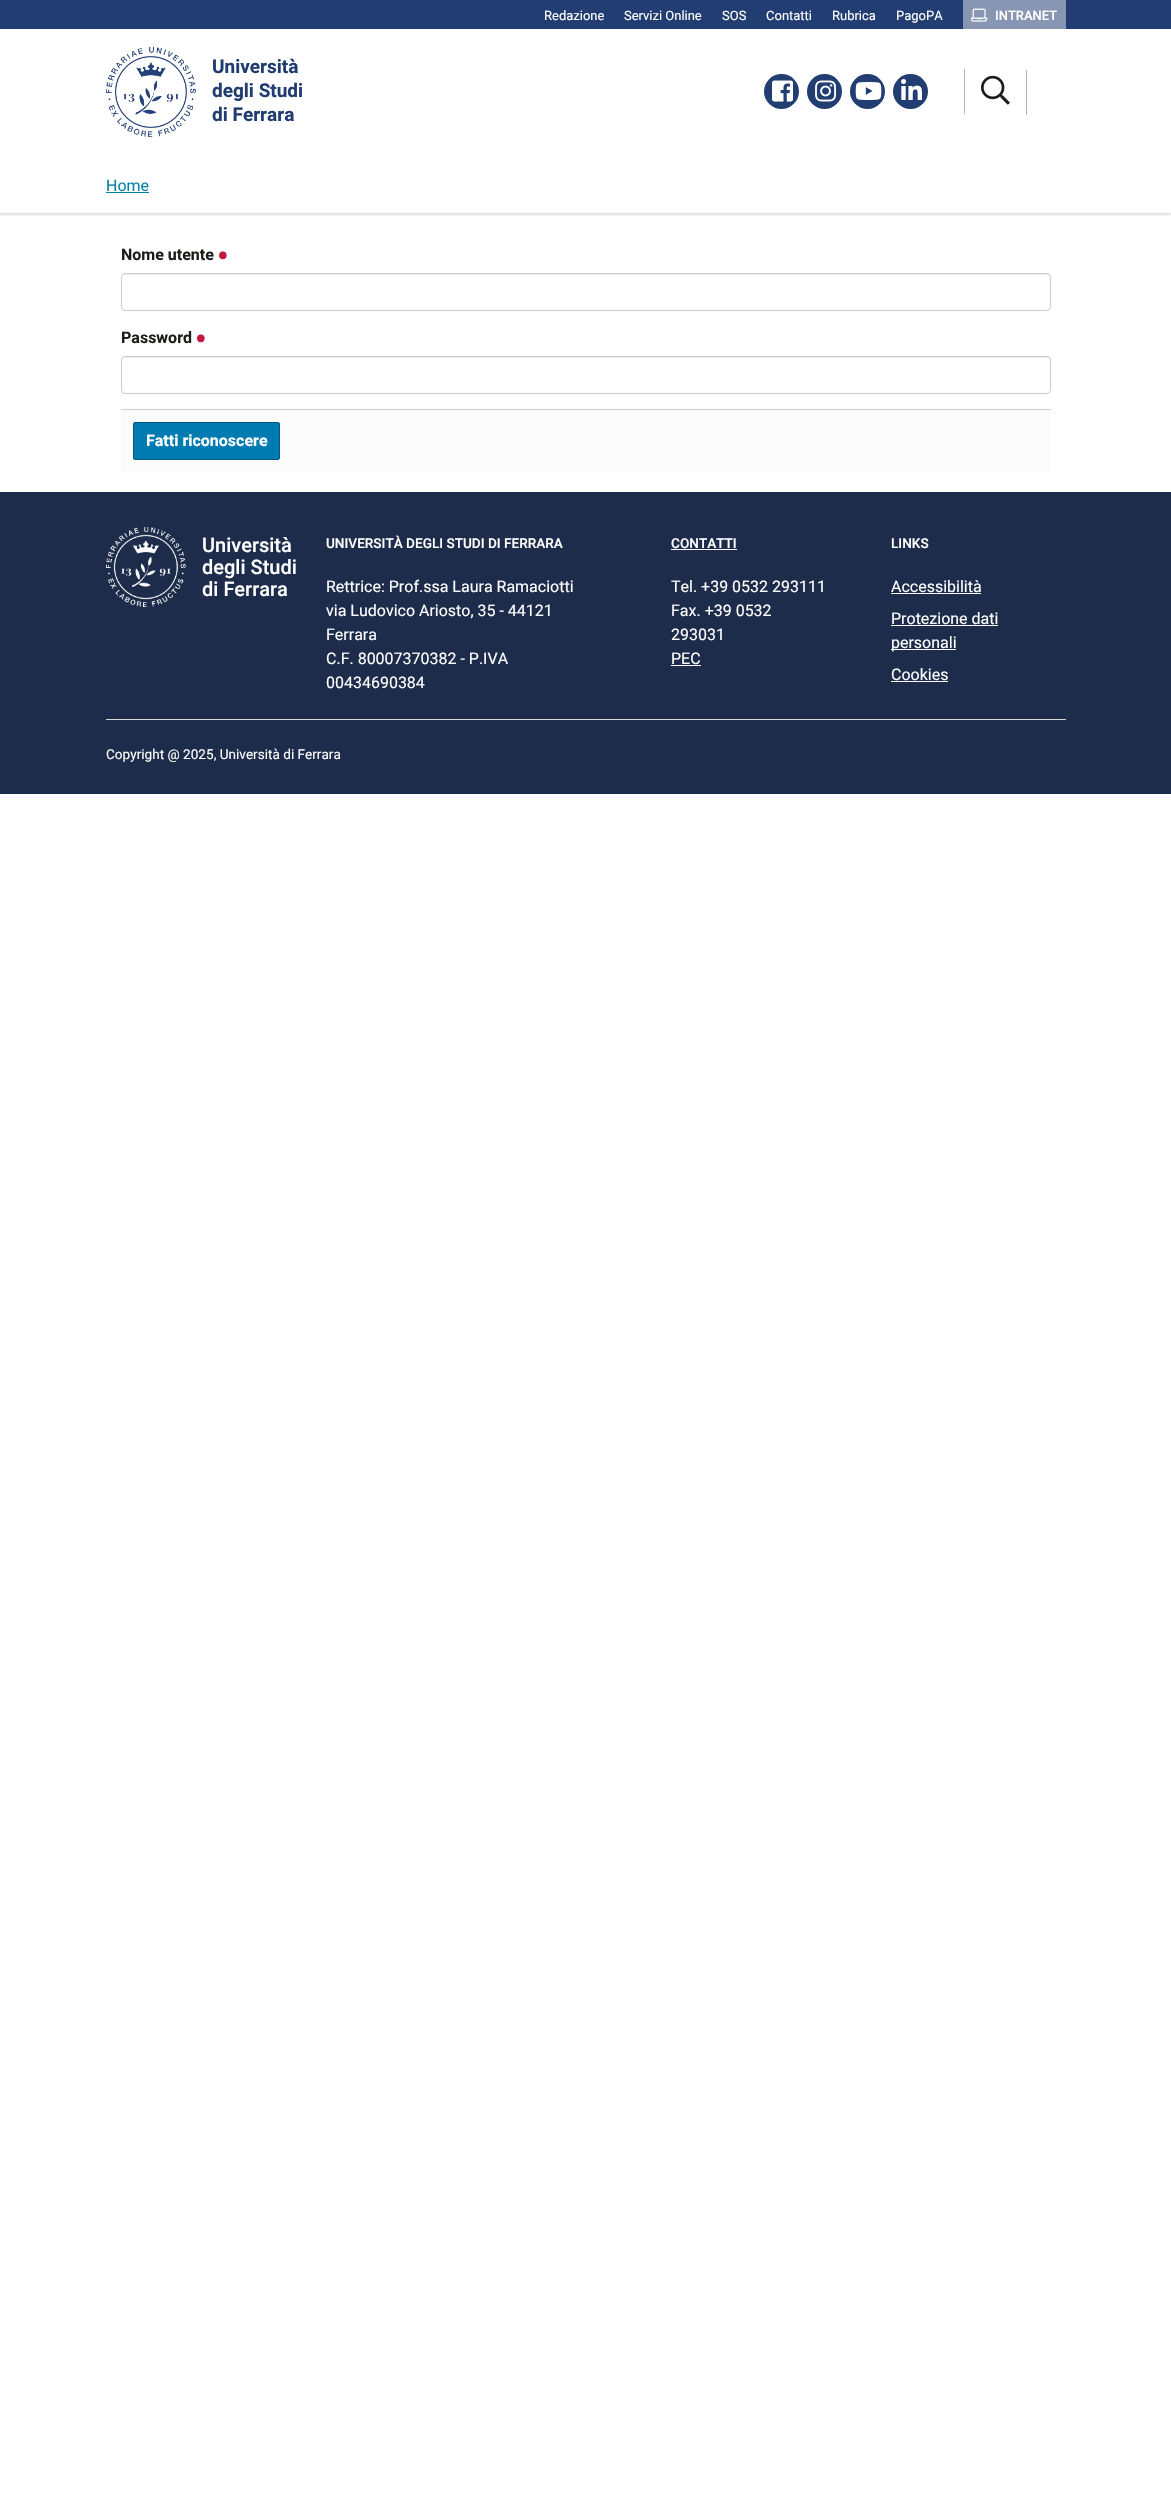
void draw(SkCanvas* canvas) {
  SkPaint paint;
  paint.setAntiAlias(true);
  auto face = [&](const char* family, int weight, float size, bool italic = false) {
    SkFontStyle style(weight, SkFontStyle::kNormal_Width,
      italic ? SkFontStyle::kItalic_Slant : SkFontStyle::kUpright_Slant);
    SkFont result(fontMgr->matchFamilyStyle(family, style), size);
    result.setSubpixel(true);
    return result;
  };
  auto paste = [&](const char* path, float x, float y, float w, float h) {
    auto image = SkImages::DeferredFromEncodedData(SkData::MakeFromFileName(path));
    canvas->drawImageRect(image, SkRect::MakeXYWH(x, y, w, h), SkSamplingOptions());
  };
  auto shape = [&](const char* data, bool evenOdd = false) {
    SkPath result = *SkParsePath::FromSVGString(data);
    if (evenOdd) result.setFillType(SkPathFillType::kEvenOdd);
    return result;
  };
  canvas->clear(0xffffffff);
  paint.setColor(0xff213d72);
  canvas->drawRect(SkRect::MakeXYWH(0, 0, 1171, 29), paint);
  paint.setColor(0xff8796b3);
  canvas->drawRect(SkRect::MakeXYWH(963, 0, 103, 29), paint);
  paste("img/1.png", 971, 8, 17, 14);
  paste("img/2.png", 106, 47, 90, 90);
  paint.setColor(0xff213d72);
  canvas->drawCircle(781.5f, 91.5f, 17.5f, paint);
  paste("img/3.png", 772, 80, 21, 22);
  canvas->drawCircle(824.5f, 91.5f, 17.5f, paint);
  paste("img/4.png", 815, 80, 22, 22);
  canvas->drawCircle(867.5f, 91.5f, 17.5f, paint);
  paste("img/5.png", 855, 82, 27, 18);
  canvas->drawCircle(910.5f, 91.5f, 17.5f, paint);
  paste("img/6.png", 901, 79, 21, 21);
  paint.setColor(0xffb3b3b3);
  canvas->drawRect(SkRect::MakeXYWH(964, 69, 1, 45), paint);
  paste("img/7.png", 981, 75, 29, 30);
  canvas->drawRect(SkRect::MakeXYWH(1026, 70, 1, 45), paint);
  canvas->save();
  canvas->clipRect(SkRect::MakeXYWH(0, 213, 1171, 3));
  paint.setColor(0x21000000);
  paint.setMaskFilter(SkMaskFilter::MakeBlur(kNormal_SkBlurStyle, 1));
  canvas->drawRect(SkRect::MakeXYWH(0, 161, 1171, 54), paint);
  paint.setMaskFilter(nullptr);
  canvas->restore();
  paint.setColor(0xff00819f);
  canvas->drawRect(SkRect::MakeXYWH(106, 192, 43, 1), paint);
  paint.setColor(0xffececec);
  canvas->drawPath(shape("M125 275H1047C1049 275 1050 276 1050 278C1050 276 1049 274 1047 274H125C123 274 122 276 122 278C122 276 123 275 125 275Z"), paint);
  paint.setStroke(true);
  paint.setStrokeWidth(1);
  paint.setColor(0xffcccccc);
  canvas->drawRoundRect(SkRect::MakeXYWH(121.5f, 273.5f, 929, 37), 3.5f, 3.5f, paint);
  paint.setStroke(false);
  paint.setColor(0xffececec);
  canvas->drawPath(shape("M125 358H1047C1049 358 1050 359 1050 361C1050 359 1049 357 1047 357H125C123 357 122 359 122 361C122 359 123 358 125 358Z"), paint);
  paint.setStroke(true);
  paint.setColor(0xffcccccc);
  canvas->drawRoundRect(SkRect::MakeXYWH(121.5f, 356.5f, 929, 37), 3.5f, 3.5f, paint);
  paint.setStroke(false);
  paint.setColor(0xfffcfcfd);
  canvas->drawRect(SkRect::MakeXYWH(121, 410, 930, 62), paint);
  paint.setColor(0xffcccccc);
  canvas->drawRect(SkRect::MakeXYWH(121, 409, 930, 1), paint);
  paint.setColor(0xff007bb1);
  canvas->drawRoundRect(SkRect::MakeXYWH(133.5f, 422.5f, 146, 37), 1.5f, 1.5f, paint);
  paint.setStroke(true);
  paint.setColor(0xff00587e);
  canvas->drawRoundRect(SkRect::MakeXYWH(133.5f, 422.5f, 146, 37), 1.5f, 1.5f, paint);
  paint.setStroke(false);
  paint.setColor(0xff1c2c4a);
  canvas->drawRect(SkRect::MakeXYWH(0, 492, 1171, 302), paint);
  paste("img/8.png", 106, 527, 80, 80);
  {
    const struct { float x, y, w, h; SkColor color; } items[] = {
      {671, 549, 66, 1, 0xffffffff},
      {671, 665, 30, 1, 0xffffffff},
      {891, 593, 90, 1, 0xffffffff},
      {891, 625, 107, 1, 0xffffffff},
      {891, 649, 65, 1, 0xffffffff},
      {891, 681, 57, 1, 0xffffffff},
      {106, 719, 960, 1, 0xffd8d8d8},
    };
    for (auto [x, y, w, h, color] : items) {
      paint.setColor(color);
      canvas->drawRect(SkRect::MakeXYWH(x, y, w, h), paint);
    }
  }
  auto f0 = face("Roboto", 400, 13);
  paint.setColor(0xffffffff);
  {
    const struct { const char* s; float x, y; } items[] = {
      {"Redazione", 544, 20},
      {"Servizi Online", 624, 20},
      {"SOS", 722, 20},
      {"Contatti", 766, 20},
      {"Rubrica", 832, 20},
      {"PagoPA", 896, 20},
    };
    for (auto [s, x, y] : items) {
      canvas->drawString(s, x, y, f0, paint);
    }
  }
  auto f1 = face("Roboto", 500, 13);
  canvas->drawString("INTRANET", 995, 20, f1, paint);
  auto f2 = face("Roboto", 700, 19);
  paint.setColor(0xff203d71);
  {
    const struct { const char* s; float x, y; } items[] = {
      {"Università", 212, 73},
      {"degli Studi", 212, 97},
      {"di Ferrara", 212, 121},
    };
    for (auto [s, x, y] : items) {
      canvas->drawString(s, x, y, f2, paint);
    }
  }
  auto f3 = face("Roboto", 400, 16);
  paint.setColor(0xff00819f);
  canvas->drawString("Home", 106, 191, f3, paint);
  auto f4 = face("Roboto", 700, 16);
  paint.setColor(0xff1d1d1b);
  canvas->drawString("Nome utente", 121, 260, f4, paint);
  auto f5 = face("Roboto", 700, 32);
  paint.setColor(0xffc4183c);
  canvas->drawString("•", 217, 267, f5, paint);
  paint.setColor(0xff1d1d1b);
  canvas->drawString("Password", 121, 343, f4, paint);
  paint.setColor(0xffc4183c);
  canvas->drawString("•", 195, 350, f5, paint);
  paint.setColor(0xffffffff);
  canvas->drawString("Fatti riconoscere", 146, 446, f4, paint);
  auto f6 = face("Roboto", 500, 20);
  {
    const struct { const char* s; float x, y; } items[] = {
      {"Università", 202, 552},
      {"degli Studi", 202, 574},
      {"di Ferrara", 202, 596},
    };
    for (auto [s, x, y] : items) {
      canvas->drawString(s, x, y, f6, paint);
    }
  }
  auto f7 = face("Roboto", 500, 13.6f);
  canvas->drawString("UNIVERSITÀ DEGLI STUDI DI FERRARA", 326, 548, f7, paint);
  {
    const struct { const char* s; float x, y; } items[] = {
      {"Rettrice: Prof.ssa Laura Ramaciotti", 326, 592},
      {"via Ludovico Ariosto, 35 - 44121", 326, 616},
      {"Ferrara", 326, 640},
      {"C.F. 80007370382 - P.IVA", 326, 664},
      {"00434690384", 326, 688},
    };
    for (auto [s, x, y] : items) {
      canvas->drawString(s, x, y, f3, paint);
    }
  }
  canvas->drawString("CONTATTI", 671, 548, f7, paint);
  {
    const struct { const char* s; float x, y; } items[] = {
      {"Tel. +39 0532 293111", 671, 592},
      {"Fax. +39 0532", 671, 616},
      {"293031", 671, 640},
      {"PEC", 671, 664},
    };
    for (auto [s, x, y] : items) {
      canvas->drawString(s, x, y, f3, paint);
    }
  }
  canvas->drawString("LINKS", 891, 548, f7, paint);
  {
    const struct { const char* s; float x, y; } items[] = {
      {"Accessibilità", 891, 592},
      {"Protezione dati", 891, 624},
      {"personali", 891, 648},
      {"Cookies", 891, 680},
    };
    for (auto [s, x, y] : items) {
      canvas->drawString(s, x, y, f3, paint);
    }
  }
  auto f8 = face("Roboto", 400, 13.6f);
  canvas->drawString("Copyright @ 2025, Università di Ferrara", 106, 759, f8, paint);
}
